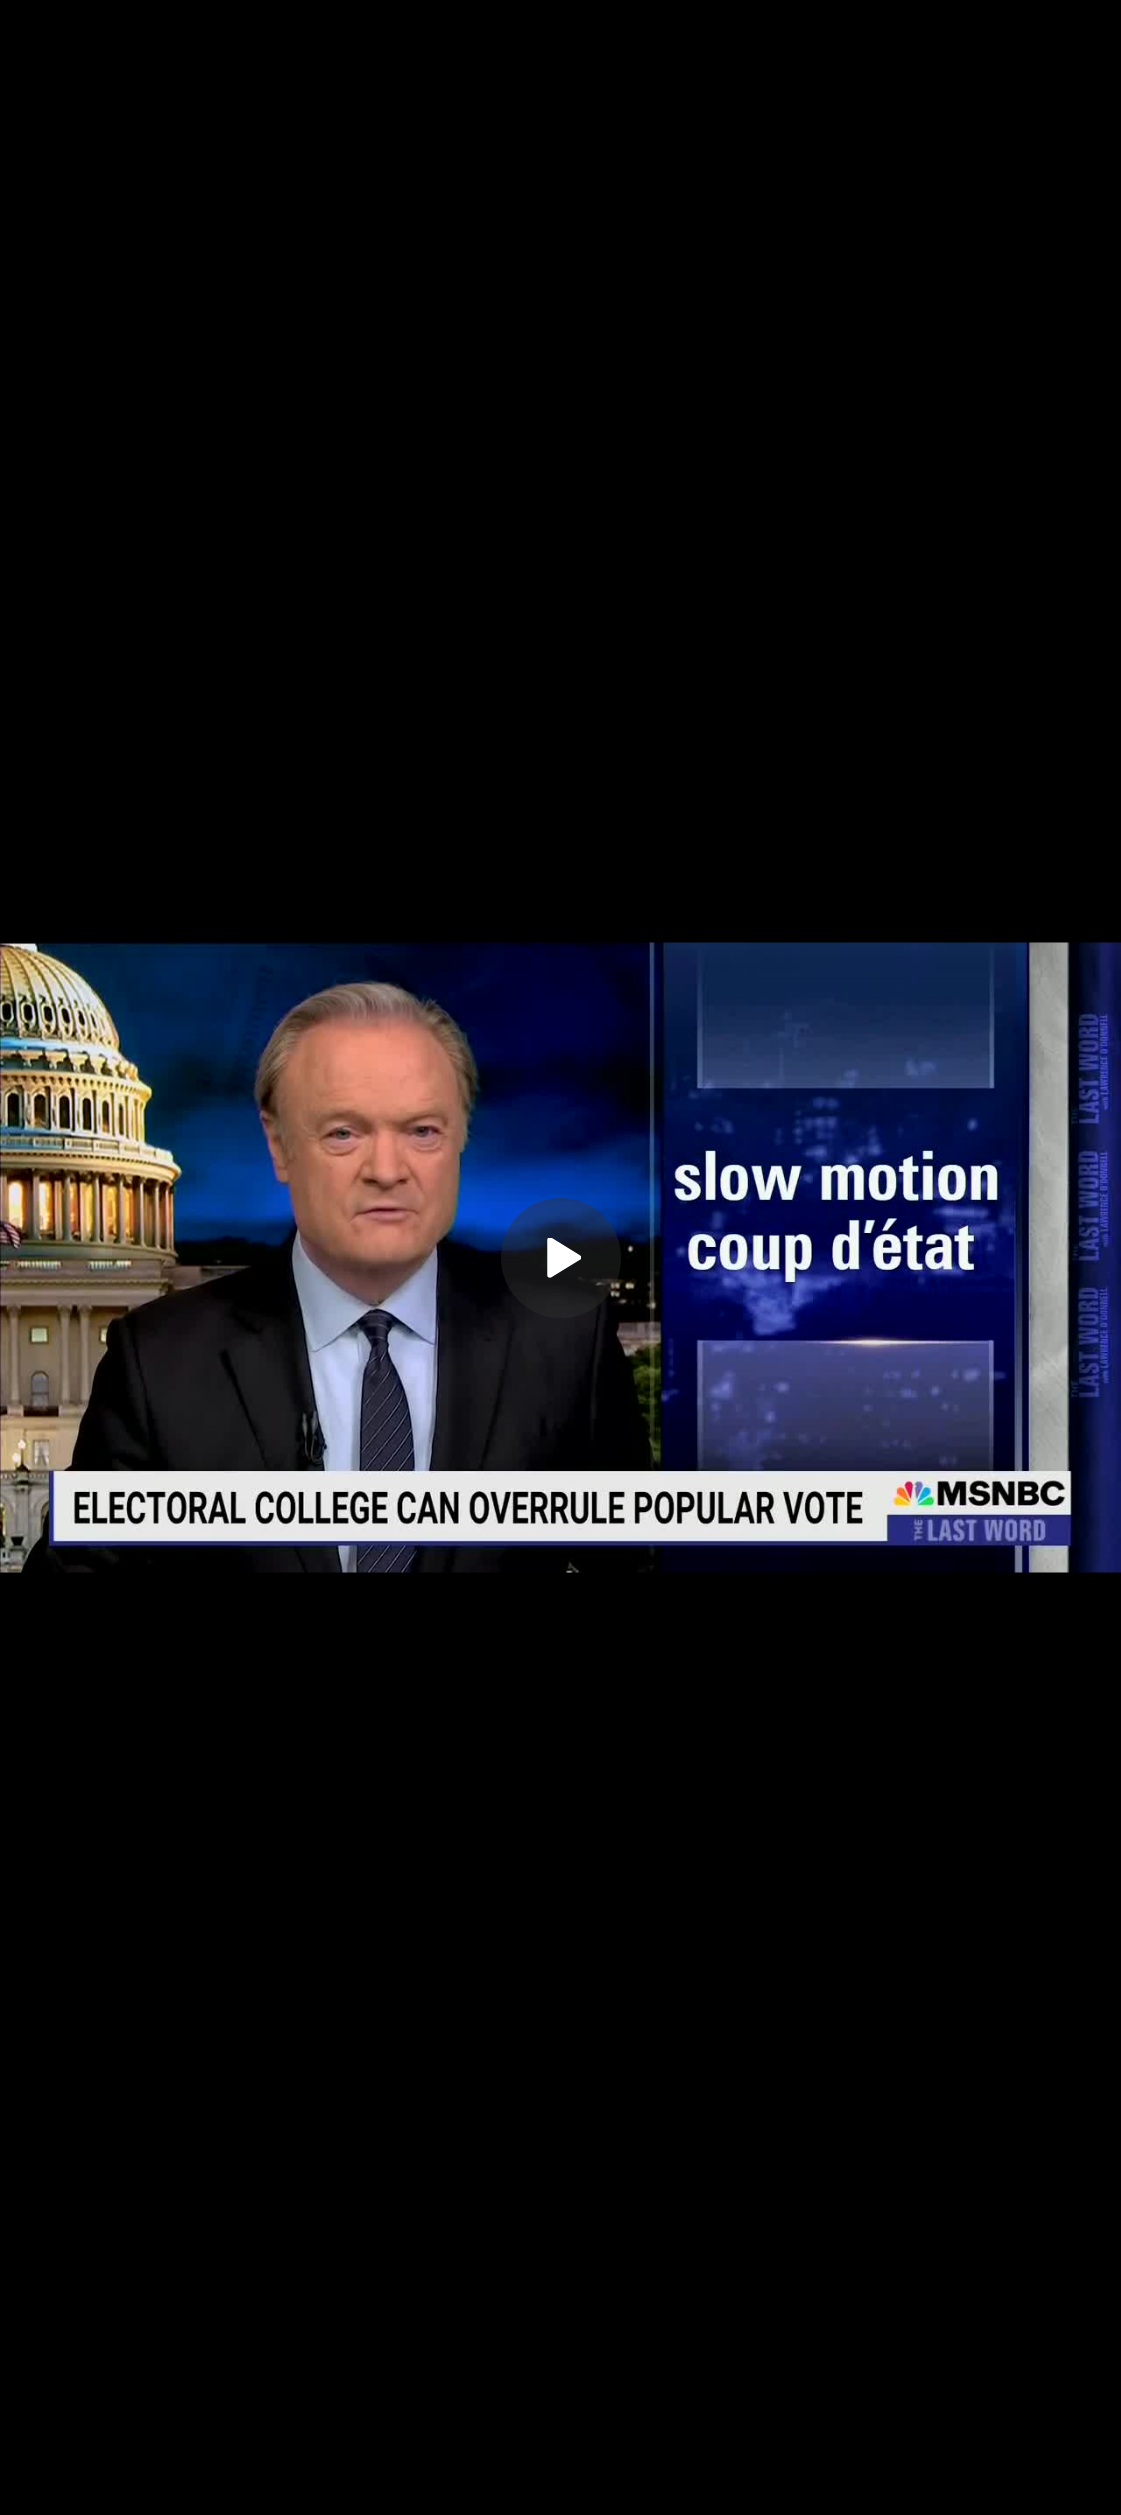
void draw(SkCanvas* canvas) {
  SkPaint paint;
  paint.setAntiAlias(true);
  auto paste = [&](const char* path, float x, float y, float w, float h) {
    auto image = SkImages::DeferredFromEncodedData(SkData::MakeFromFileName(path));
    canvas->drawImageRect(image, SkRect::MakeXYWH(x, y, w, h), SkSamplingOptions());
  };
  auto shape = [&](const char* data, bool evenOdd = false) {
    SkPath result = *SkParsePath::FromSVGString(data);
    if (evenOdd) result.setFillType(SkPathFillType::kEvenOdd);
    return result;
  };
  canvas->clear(0xff000000);
  paste("img/1.png", 0, 942, 1121, 631);
  paint.setColor(0x66303030);
  canvas->drawCircle(561, 1258, 60, paint);
  paint.setColor(0xffffffff);
  canvas->drawPath(shape("M578.5 1257.5L550 1240V1275Z"), paint);
  canvas->save();
  canvas->clipRect(SkRect::MakeXYWH(541, 1238, 40, 40));
  paint.setStroke(true);
  paint.setStrokeWidth(5.5f);
  paint.setStrokeJoin(SkPaint::kRound_Join);
  canvas->drawPath(shape("M578.5 1257.5L550 1240V1275Z"), paint);
  canvas->restore();
}
